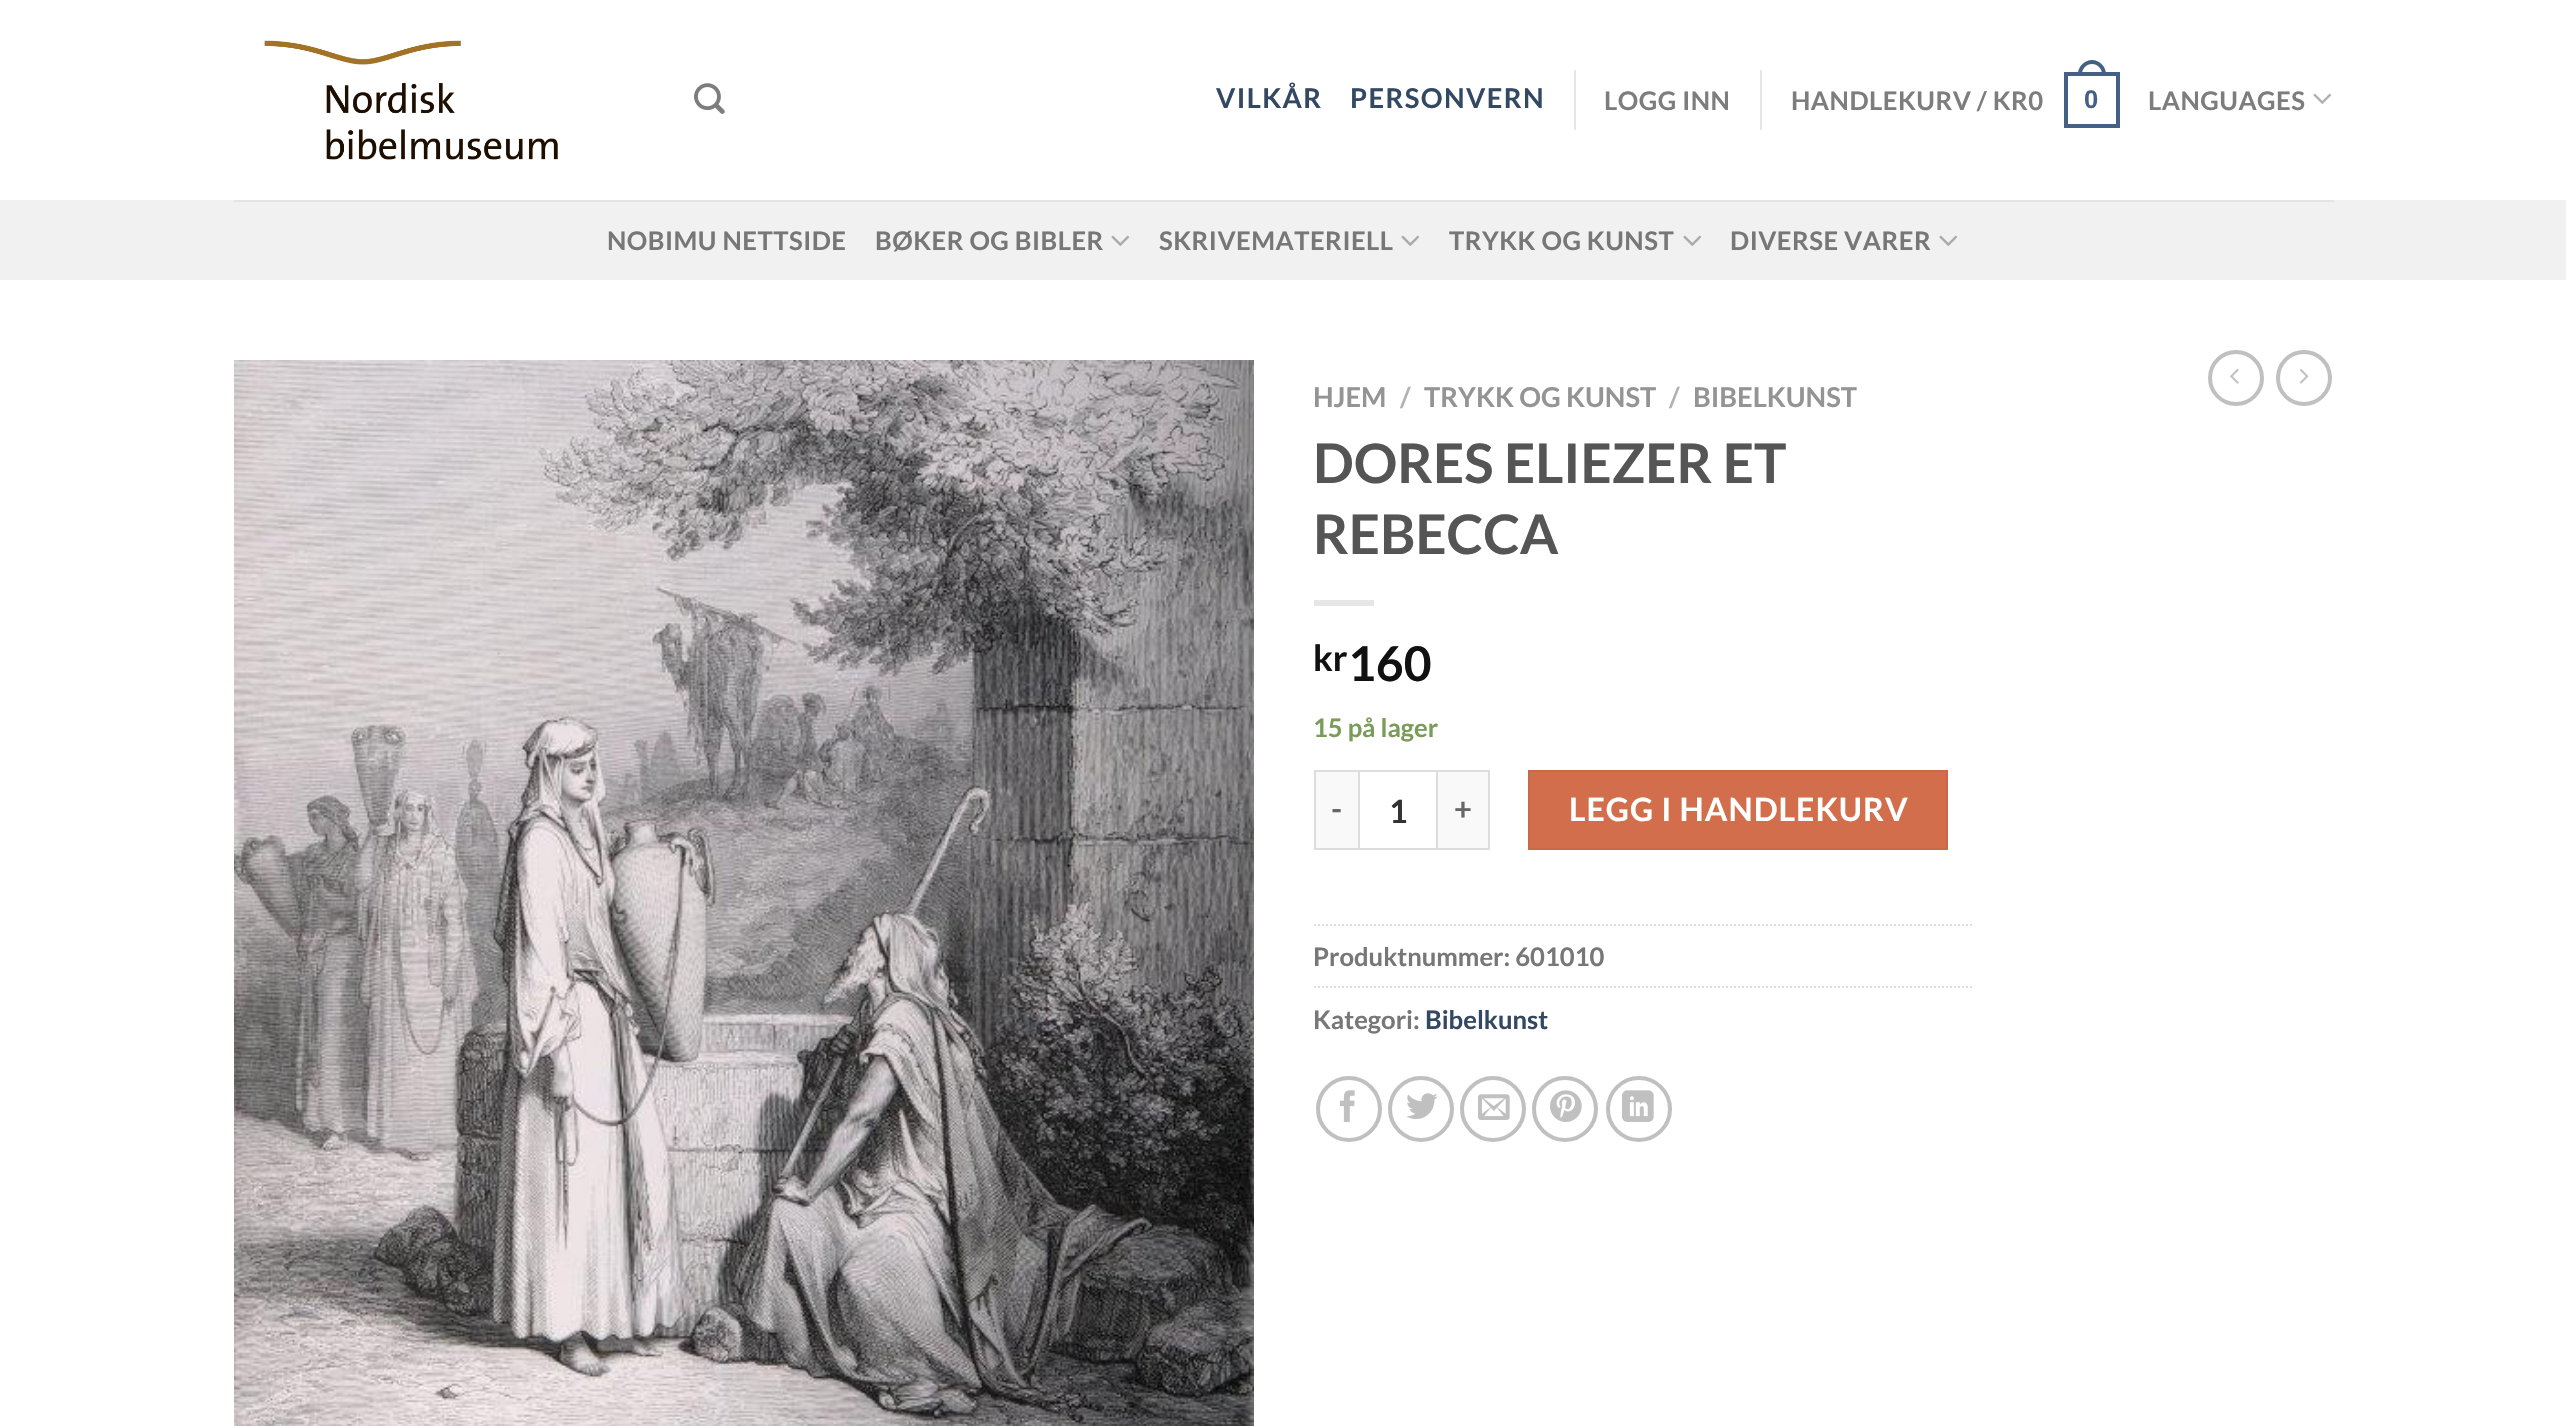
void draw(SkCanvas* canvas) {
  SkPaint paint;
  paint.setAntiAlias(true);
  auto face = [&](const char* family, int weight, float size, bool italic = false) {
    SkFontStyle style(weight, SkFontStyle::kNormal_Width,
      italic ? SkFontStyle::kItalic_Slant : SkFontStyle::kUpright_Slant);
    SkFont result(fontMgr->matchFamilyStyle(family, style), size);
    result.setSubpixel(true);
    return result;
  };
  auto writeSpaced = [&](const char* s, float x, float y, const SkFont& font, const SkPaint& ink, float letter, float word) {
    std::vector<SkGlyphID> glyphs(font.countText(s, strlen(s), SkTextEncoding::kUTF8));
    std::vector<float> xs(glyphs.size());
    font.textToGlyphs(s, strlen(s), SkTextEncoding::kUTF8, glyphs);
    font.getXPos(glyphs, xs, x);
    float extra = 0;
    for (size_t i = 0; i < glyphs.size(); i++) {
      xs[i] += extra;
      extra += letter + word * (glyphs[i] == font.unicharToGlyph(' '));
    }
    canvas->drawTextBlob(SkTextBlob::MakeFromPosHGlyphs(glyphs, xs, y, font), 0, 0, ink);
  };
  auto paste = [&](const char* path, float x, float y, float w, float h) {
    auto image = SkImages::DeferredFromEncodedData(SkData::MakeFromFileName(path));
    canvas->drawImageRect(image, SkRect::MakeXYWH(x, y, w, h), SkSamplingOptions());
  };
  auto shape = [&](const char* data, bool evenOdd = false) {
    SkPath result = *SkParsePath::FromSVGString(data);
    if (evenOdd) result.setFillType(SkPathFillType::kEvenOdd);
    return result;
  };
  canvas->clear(0xffffffff);
  paste("img/1.png", 264, 40, 294, 120);
  paste("img/2.png", 694, 83, 31, 31);
  paint.setColor(0xffe6e6e6);
  canvas->drawRect(SkRect::MakeXYWH(1574, 70, 2, 60), paint);
  canvas->drawRect(SkRect::MakeXYWH(1760, 70, 2, 60), paint);
  paint.setStroke(true);
  paint.setStrokeWidth(4);
  paint.setColor(0xff446084);
  canvas->drawRect(SkRect::MakeXYWH(2066, 74, 52, 52), paint);
  paint.setStroke(false);
  canvas->drawPath(shape("M2092 60C2099.5 60 2106 66.5 2106 74V76H2078V74C2078 66.5 2084.5 60 2092 60ZM2092 64C2097.5 64 2102 68.5 2102 74V76H2082V74C2082 68.5 2086.5 64 2092 64Z", true), paint);
  paste("img/3.png", 2313, 93, 19, 11);
  paint.setColor(0xfff1f1f1);
  canvas->drawRect(SkRect::MakeXYWH(0, 200, 2566, 80), paint);
  paint.setColor(0xffe5e5e5);
  canvas->drawRect(SkRect::MakeXYWH(234, 200, 2100, 2), paint);
  paste("img/4.png", 1111, 235, 19, 11);
  paste("img/4.png", 1401, 235, 19, 11);
  paste("img/4.png", 1683, 235, 19, 11);
  paste("img/4.png", 1939, 235, 19, 11);
  paste("img/5.png", 234, 360, 1020, 1066);
  {
    const struct { float x, y, w, h; SkColor color; } items[] = {
      {1314, 600, 60, 6, 0xffe6e6e6},
      {1316, 772, 42, 76, 0xfff9f9f9},
      {1314, 770, 44, 2, 0xffdddddd},
      {1314, 848, 44, 2, 0xffdddddd},
      {1314, 770, 2, 80, 0xffdddddd},
    };
    for (auto [x, y, w, h, color] : items) {
      paint.setColor(color);
      canvas->drawRect(SkRect::MakeXYWH(x, y, w, h), paint);
    }
  }
  paint.setStroke(true);
  paint.setStrokeWidth(2);
  canvas->drawRect(SkRect::MakeXYWH(1359, 771, 78, 78), paint);
  paint.setStroke(false);
  {
    const struct { float x, y, w, h; SkColor color; } items[] = {
      {1438, 772, 50, 76, 0xfff9f9f9},
      {1438, 770, 52, 2, 0xffdddddd},
      {1488, 770, 2, 80, 0xffdddddd},
      {1438, 848, 52, 2, 0xffdddddd},
    };
    for (auto [x, y, w, h, color] : items) {
      paint.setColor(color);
      canvas->drawRect(SkRect::MakeXYWH(x, y, w, h), paint);
    }
  }
  paint.setColor(0xffd26e4b);
  canvas->drawRect(SkRect::MakeXYWH(1529, 771, 418, 78), paint);
  paint.setStroke(true);
  paint.setColor(0xffc86947);
  canvas->drawRect(SkRect::MakeXYWH(1529, 771, 418, 78), paint);
  paint.setColor(0xffdddddd);
  paint.setPathEffect(SkDashPathEffect::Make({{2, 2}}, 0));
  canvas->drawPath(shape("M1314 925H1974"), paint);
  paint.setPathEffect(nullptr);
  paint.setPathEffect(SkDashPathEffect::Make({{2, 2}}, 0));
  canvas->drawPath(shape("M1314 987H1974"), paint);
  paint.setPathEffect(nullptr);
  paint.setStrokeWidth(4);
  paint.setColor(0xffc0c0c0);
  canvas->drawCircle(1349, 1109, 31, paint);
  paste("img/6.png", 1339, 1090, 16, 32);
  canvas->drawCircle(1421, 1109, 31, paint);
  paste("img/7.png", 1406, 1093, 32, 26);
  canvas->drawCircle(1493, 1109, 31, paint);
  paste("img/8.png", 1478, 1094, 32, 26);
  canvas->drawCircle(1565, 1109, 31, paint);
  paste("img/9.png", 1550, 1090, 32, 32);
  canvas->drawCircle(1639, 1109, 31, paint);
  paste("img/10.png", 1622, 1090, 32, 32);
  canvas->drawCircle(2236, 378, 26, paint);
  paste("img/11.png", 2230, 368, 9, 16);
  canvas->drawCircle(2304, 378, 26, paint);
  paste("img/12.png", 2299, 369, 10, 15);
  auto f0 = face("Lato", 700, 27.25f);
  paint.setStroke(false);
  paint.setColor(0xff334862);
  writeSpaced("VILKÅR", 1216, 108, f0, paint, 1.4f, 0);
  writeSpaced("PERSONVERN", 1350, 108, f0, paint, 1.4f, 0);
  auto f1 = face("Lato", 700, 25.6f);
  paint.setColor(0xff7d7d7d);
  writeSpaced("LOGG INN", 1604, 110, f1, paint, 0.5f, 0);
  writeSpaced("HANDLEKURV / KR0", 1791, 110, f1, paint, 0.5f, 0);
  auto f2 = face("Liberation Sans", 700, 25.6f);
  paint.setColor(0xff446084);
  writeSpaced("0", 2084, 108, f2, paint, 0.5f, 0);
  paint.setColor(0xff7d7d7d);
  writeSpaced("LANGUAGES", 2148, 110, f1, paint, 0.5f, 0);
  paint.setColor(0xff777777);
  {
    const struct { const char* s; float x, y; } items[] = {
      {"NOBIMU NETTSIDE", 607, 250},
      {"BØKER OG BIBLER", 875, 250},
      {"SKRIVEMATERIELL", 1159, 250},
      {"TRYKK OG KUNST", 1449, 250},
      {"DIVERSE VARER", 1730, 250},
    };
    for (auto [s, x, y] : items) {
      writeSpaced(s, x, y, f1, paint, 0.5f, 0);
    }
  }
  paint.setColor(0xff949494);
  canvas->drawString("HJEM", 1313, 407, f0, paint);
  paint.setColor(0xffb2b2b2);
  canvas->drawString("/", 1400, 407, f0, paint);
  paint.setColor(0xff949494);
  canvas->drawString("TRYKK OG KUNST", 1424, 407, f0, paint);
  paint.setColor(0xffb2b2b2);
  canvas->drawString("/", 1669, 407, f0, paint);
  paint.setColor(0xff949494);
  canvas->drawString("BIBELKUNST", 1693, 407, f0, paint);
  auto f3 = face("Lato", 700, 54.5f);
  paint.setColor(0xff555555);
  canvas->drawString("DORES ELIEZER ET", 1313, 483, f3, paint);
  canvas->drawString("REBECCA", 1313, 554, f3, paint);
  auto f4 = face("Lato", 700, 36);
  paint.setColor(0xff111111);
  canvas->drawString("kr", 1313, 671, f4, paint);
  auto f5 = face("Lato", 700, 48);
  canvas->drawString("160", 1348, 681, f5, paint);
  paint.setColor(0xff7a9c59);
  canvas->drawString("15 på lager", 1313, 737, f1, paint);
  auto f6 = face("Lato", 700, 31);
  paint.setColor(0xff666666);
  writeSpaced("-", 1331, 820, f6, paint, 1, 0);
  auto f7 = face("Lato", 700, 32);
  paint.setColor(0xff333333);
  canvas->drawString("1", 1389, 823, f7, paint);
  paint.setColor(0xff666666);
  writeSpaced("+", 1454, 820, f6, paint, 1, 0);
  paint.setColor(0xffffffff);
  writeSpaced("LEGG I HANDLEKURV", 1569, 821, f7, paint, 1, 0);
  paint.setColor(0xff777777);
  canvas->drawString("Produktnummer: 601010", 1313, 966, f1, paint);
  canvas->drawString("Kategori:", 1313, 1029, f1, paint);
  paint.setColor(0xff334862);
  canvas->drawString("Bibelkunst", 1425, 1029, f1, paint);
}
